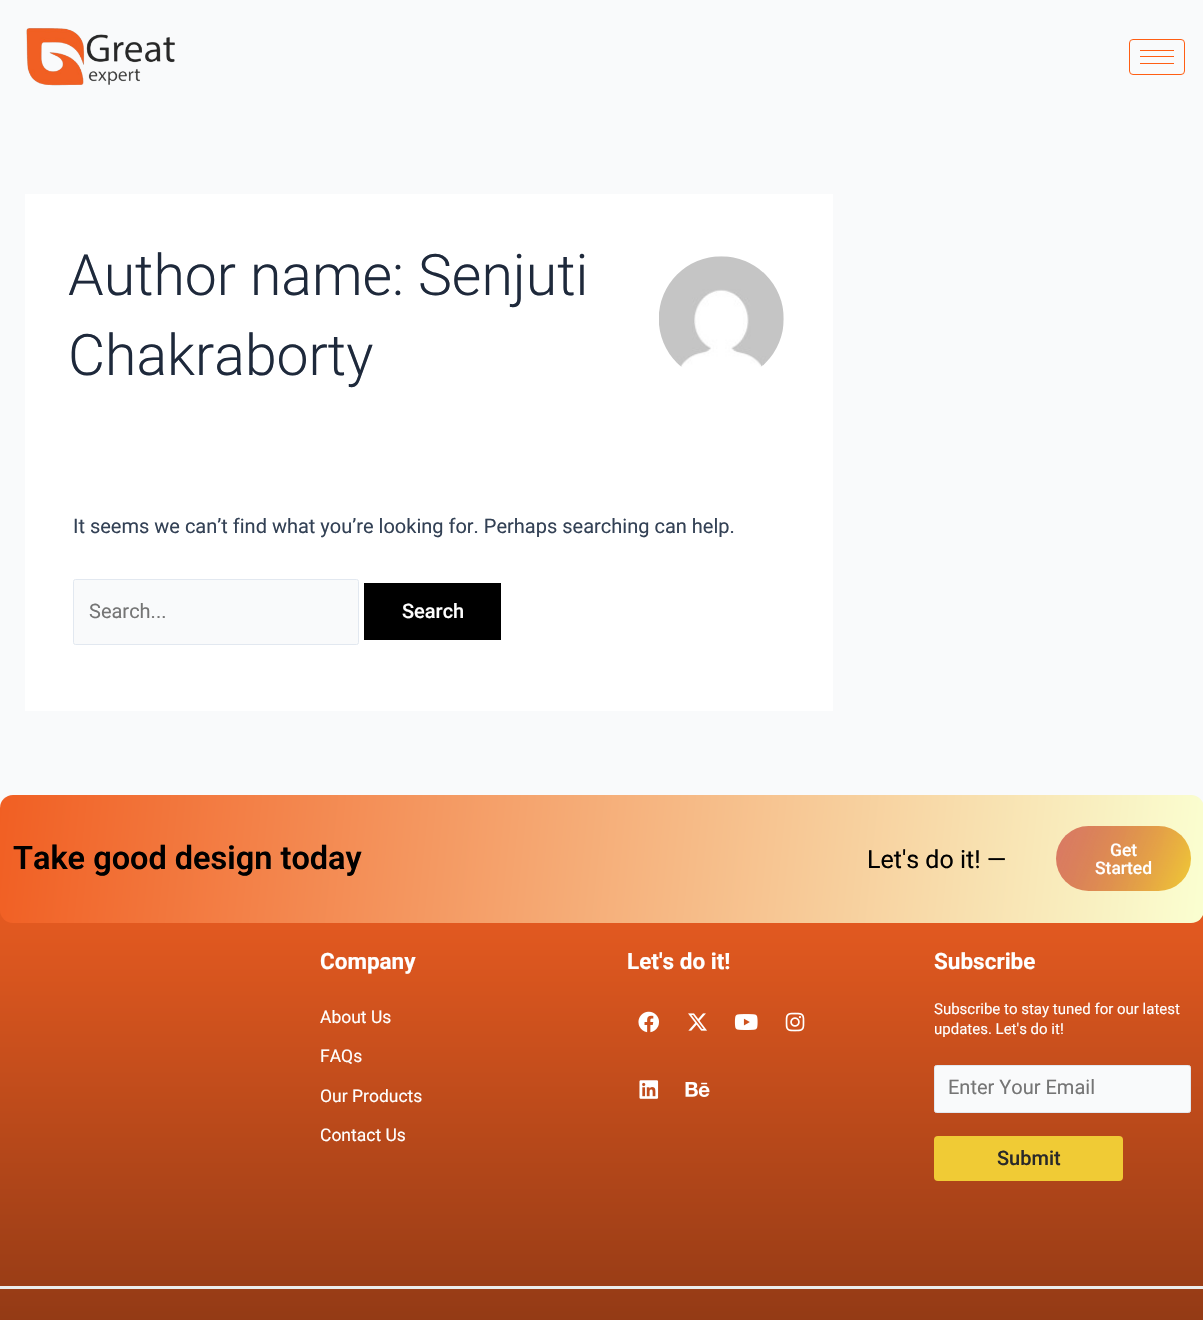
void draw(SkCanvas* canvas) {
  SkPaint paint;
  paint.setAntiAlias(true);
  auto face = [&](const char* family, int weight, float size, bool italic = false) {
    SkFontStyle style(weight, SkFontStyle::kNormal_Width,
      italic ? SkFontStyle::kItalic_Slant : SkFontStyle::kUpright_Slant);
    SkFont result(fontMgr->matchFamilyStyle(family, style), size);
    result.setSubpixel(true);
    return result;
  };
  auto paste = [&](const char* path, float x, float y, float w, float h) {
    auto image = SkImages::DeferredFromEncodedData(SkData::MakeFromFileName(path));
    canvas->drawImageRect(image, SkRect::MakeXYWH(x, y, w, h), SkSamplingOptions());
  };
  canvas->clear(0xfff9fafb);
  paste("img/1.png", 26, 28, 149, 58);
  paint.setStroke(true);
  paint.setStrokeWidth(1);
  paint.setColor(0xffff5e13);
  canvas->drawRoundRect(SkRect::MakeXYWH(1129.5f, 39.5f, 55, 35), 3.5f, 3.5f, paint);
  paint.setStroke(false);
  {
    const struct { float x, y, w, h; SkColor color; } items[] = {
      {1140, 50, 34, 1, 0xffff5e13},
      {1140, 56, 34, 1, 0xffff5e13},
      {1140, 63, 34, 1, 0xffff5e13},
      {25, 194, 808, 517, 0xffffffff},
    };
    for (auto [x, y, w, h, color] : items) {
      paint.setColor(color);
      canvas->drawRect(SkRect::MakeXYWH(x, y, w, h), paint);
    }
  }
  paste("img/2.png", 659, 256, 125, 111);
  paint.setColor(0xfff9fafb);
  canvas->drawRoundRect(SkRect::MakeXYWH(73.5f, 579.5f, 285, 65), 2, 2, paint);
  paint.setStroke(true);
  paint.setColor(0xffe2e8f0);
  canvas->drawRoundRect(SkRect::MakeXYWH(73.5f, 579.5f, 285, 65), 2, 2, paint);
  paint.setStroke(false);
  paint.setColor(0xff000000);
  canvas->drawRect(SkRect::MakeXYWH(364, 583, 137, 57), paint);
  {
    const SkColor colors[] = {0xfff15f22, 0xff8b3714};
    const float stops[] = {0, 1};
    const SkPoint ends[] = {{602, 846}, {602, 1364}};
    paint.setShader(SkGradientShader::MakeLinear(ends, colors, stops, 2, SkTileMode::kClamp));
    paint.setAlpha(255);
  }
  canvas->drawRect(SkRect::MakeXYWH(0, 910, 1203, 410), paint);
  {
    const SkColor colors[] = {0xfff15f23, 0xfffaffd1};
    const float stops[] = {0, 1};
    const SkPoint ends[] = {{-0.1f, 795}, {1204, 922}};
    paint.setShader(SkGradientShader::MakeLinear(ends, colors, stops, 2, SkTileMode::kClamp));
    paint.setAlpha(255);
  }
  canvas->drawRoundRect(SkRect::MakeXYWH(0, 795, 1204, 128), 13, 13, paint);
  {
    const SkColor colors[] = {0x91c02425, 0xfff0cb35};
    const float stops[] = {0, 1};
    const SkPoint ends[] = {{1055, 830}, {1193, 888}};
    paint.setShader(SkGradientShader::MakeLinear(ends, colors, stops, 2, SkTileMode::kClamp));
    paint.setAlpha(255);
  }
  canvas->drawRoundRect(SkRect::MakeXYWH(1056, 826, 135, 65), 32.5f, 32.5f, paint);
  paste("img/3.png", 638, 1011, 21, 22);
  paste("img/4.png", 688, 1013, 19, 18);
  paste("img/5.png", 734, 1014, 24, 16);
  paste("img/6.png", 785, 1012, 20, 20);
  paste("img/7.png", 639, 1080, 20, 19);
  paste("img/8.png", 685, 1082, 25, 15);
  paint.setShader(nullptr);
  paint.setColor(0xfff9fafb);
  canvas->drawRoundRect(SkRect::MakeXYWH(934.5f, 1065.5f, 256, 47), 2, 2, paint);
  paint.setStroke(true);
  paint.setColor(0xffe2e8f0);
  canvas->drawRoundRect(SkRect::MakeXYWH(934.5f, 1065.5f, 256, 47), 2, 2, paint);
  paint.setStroke(false);
  paint.setColor(0xfff0cb35);
  canvas->drawRoundRect(SkRect::MakeXYWH(934, 1136, 189, 45), 4, 4, paint);
  paint.setColor(0xffebebeb);
  canvas->drawRect(SkRect::MakeXYWH(0, 1286, 1203, 3), paint);
  auto f0 = face("Roboto", 300, 57.1f);
  paint.setColor(0xff1e293b);
  canvas->drawString("Author name: Senjuti", 68, 295, f0, paint);
  canvas->drawString("Chakraborty", 68, 375, f0, paint);
  auto f1 = face("Roboto", 400, 20);
  paint.setColor(0xff334155);
  canvas->drawString("It seems we can’t find what you’re looking for. Perhaps searching can help.", 73, 533, f1, paint);
  paint.setColor(0xff757575);
  canvas->drawString("Search...", 89, 618, f1, paint);
  auto f2 = face("Roboto", 500, 20);
  paint.setColor(0xffffffff);
  canvas->drawString("Search", 402, 618, f2, paint);
  auto f3 = face("Roboto", 600, 32.5f);
  paint.setColor(0xff000000);
  canvas->drawString("Take good design today", 13, 869, f3, paint);
  auto f4 = face("Roboto", 400, 25);
  canvas->drawString("Let's do it! —", 867, 868, f4, paint);
  auto f5 = face("Roboto", 500, 17.5f);
  paint.setColor(0xffffffff);
  canvas->drawString("Get", 1110, 856, f5, paint);
  canvas->drawString("Started", 1095, 874, f5, paint);
  auto f6 = face("Roboto", 700, 22.5f);
  canvas->drawString("Company", 320, 969, f6, paint);
  auto f7 = face("Roboto", 400, 17.5f);
  {
    const struct { const char* s; float x, y; } items[] = {
      {"About Us", 320, 1023},
      {"FAQs", 320, 1062},
      {"Our Products", 320, 1102},
      {"Contact Us", 320, 1141},
    };
    for (auto [s, x, y] : items) {
      canvas->drawString(s, x, y, f7, paint);
    }
  }
  canvas->drawString("Let's do it!", 627, 969, f6, paint);
  canvas->drawString("Subscribe", 934, 969, f6, paint);
  auto f8 = face("Roboto", 400, 15);
  canvas->drawString("Subscribe to stay tuned for our latest", 934, 1014, f8, paint);
  canvas->drawString("updates. Let's do it!", 934, 1034, f8, paint);
  paint.setColor(0xff757575);
  canvas->drawString("Enter Your Email", 948, 1094, f1, paint);
  paint.setColor(0xff292929);
  canvas->drawString("Submit", 997, 1165, f2, paint);
}
